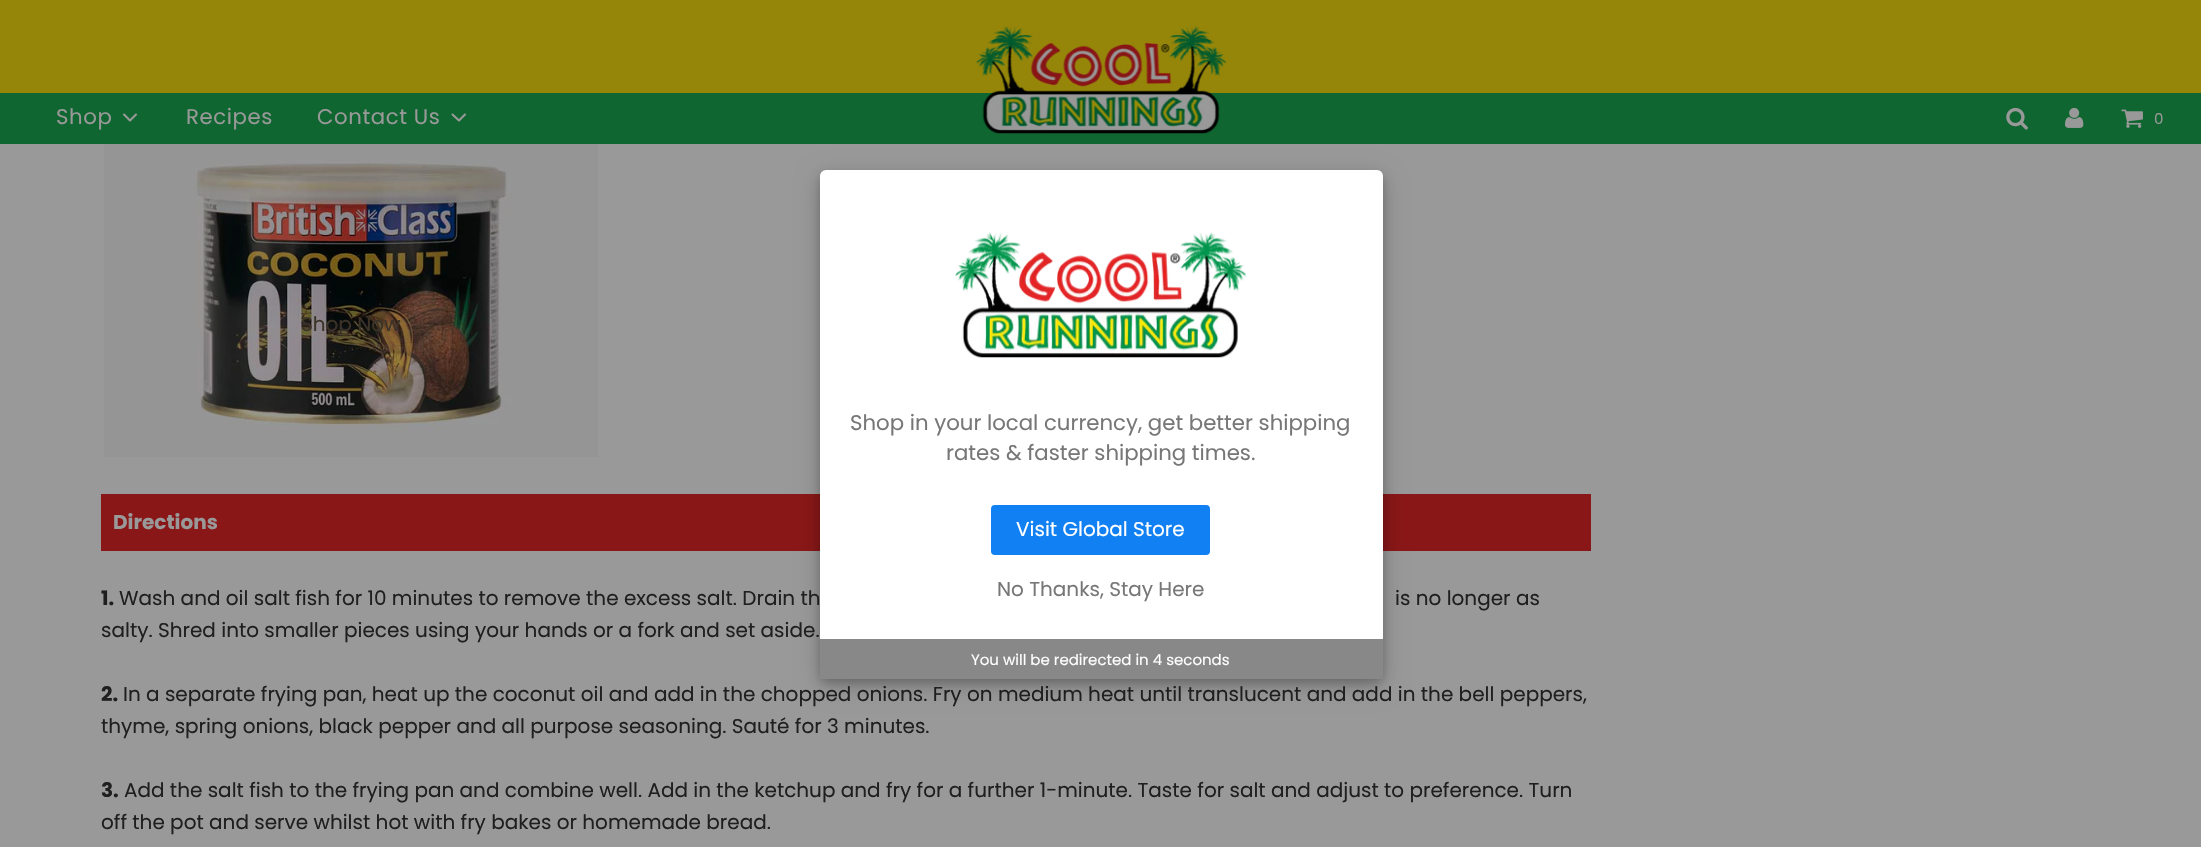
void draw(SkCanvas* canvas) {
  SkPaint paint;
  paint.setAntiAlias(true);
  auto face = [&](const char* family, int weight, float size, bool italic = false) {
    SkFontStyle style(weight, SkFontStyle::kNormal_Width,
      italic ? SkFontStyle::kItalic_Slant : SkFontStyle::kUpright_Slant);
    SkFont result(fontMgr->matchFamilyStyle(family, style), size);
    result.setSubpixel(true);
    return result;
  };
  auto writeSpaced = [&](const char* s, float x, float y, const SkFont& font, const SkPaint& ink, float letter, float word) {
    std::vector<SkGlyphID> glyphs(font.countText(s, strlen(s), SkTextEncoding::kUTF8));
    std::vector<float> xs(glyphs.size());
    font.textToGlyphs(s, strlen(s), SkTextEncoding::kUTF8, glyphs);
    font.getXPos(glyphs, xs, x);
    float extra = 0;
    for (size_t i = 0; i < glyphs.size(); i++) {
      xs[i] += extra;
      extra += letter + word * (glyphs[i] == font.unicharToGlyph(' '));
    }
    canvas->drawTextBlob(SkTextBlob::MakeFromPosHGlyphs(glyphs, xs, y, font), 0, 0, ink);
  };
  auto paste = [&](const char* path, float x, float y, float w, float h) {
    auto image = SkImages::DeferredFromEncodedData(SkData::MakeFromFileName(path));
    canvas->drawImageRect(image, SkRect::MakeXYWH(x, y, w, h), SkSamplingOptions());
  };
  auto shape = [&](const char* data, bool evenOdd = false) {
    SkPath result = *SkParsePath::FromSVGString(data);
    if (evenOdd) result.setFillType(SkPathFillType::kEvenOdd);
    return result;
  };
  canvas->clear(0xff999999);
  paint.setColor(0xff0f6630);
  canvas->drawRect(SkRect::MakeXYWH(0, 93, 2201, 51), paint);
  paint.setColor(0xff95860a);
  canvas->drawRect(SkRect::MakeXYWH(0, 0, 2201, 93), paint);
  paint.setStroke(true);
  paint.setStrokeWidth(2.1f);
  paint.setStrokeCap(SkPaint::kRound_Cap);
  paint.setStrokeJoin(SkPaint::kRound_Join);
  paint.setColor(0xff999999);
  canvas->drawPath(shape("M124 114.5L130 120.5L136 114.5"), paint);
  canvas->drawPath(shape("M452.5 114.5L459 120.5L465 114.5"), paint);
  paste("img/1.png", 976, 26, 251, 108);
  paste("img/2.png", 2006, 107, 22, 23);
  paste("img/3.png", 2065, 107, 19, 21);
  paste("img/4.png", 2121, 109, 22, 19);
  paste("img/5.png", 104, 144, 494, 313);
  paint.setStroke(false);
  paint.setColor(0xff8a1717);
  canvas->drawRect(SkRect::MakeXYWH(101, 494, 1490, 57), paint);
  paint.setColor(0x30000000);
  paint.setMaskFilter(SkMaskFilter::MakeBlur(kNormal_SkBlurStyle, 12.5f));
  canvas->drawRoundRect(SkRect::MakeXYWH(820, 178, 563, 507), 6, 6, paint);
  paint.setMaskFilter(nullptr);
  paint.setColor(0x33000000);
  paint.setMaskFilter(SkMaskFilter::MakeBlur(kNormal_SkBlurStyle, 5));
  canvas->drawRoundRect(SkRect::MakeXYWH(820, 175, 563, 508), 6, 6, paint);
  paint.setMaskFilter(nullptr);
  paint.setColor(0xffffffff);
  canvas->drawRoundRect(SkRect::MakeXYWH(820, 170, 563, 508), 6, 6, paint);
  paste("img/6.png", 955, 232, 292, 126);
  paint.setColor(0xff1080f2);
  canvas->drawRoundRect(SkRect::MakeXYWH(991, 505, 219, 50), 4, 4, paint);
  paint.setColor(0xff888888);
  canvas->drawRect(SkRect::MakeXYWH(820, 639, 563, 40), paint);
  auto f0 = face("Poppins", 400, 21.25f);
  paint.setColor(0xff999999);
  {
    const struct { const char* s; float x, y; } items[] = {
      {"Shop", 56, 124},
      {"Recipes", 186, 124},
      {"Contact Us", 317, 124},
    };
    for (auto [s, x, y] : items) {
      writeSpaced(s, x, y, f0, paint, 0.6f, 0);
    }
  }
  auto f1 = face("Poppins", 400, 15);
  writeSpaced("0", 2154, 124, f1, paint, 0.6f, 0);
  auto f2 = face("Poppins", 400, 20);
  paint.setColor(0xff3b3328);
  canvas->drawString("Shop Now", 301, 331, f2, paint);
  auto f3 = face("Poppins", 700, 20);
  paint.setColor(0xff999999);
  canvas->drawString("Directions", 113, 529, f3, paint);
  paint.setColor(0xff1f1f1f);
  canvas->drawString("1.", 101, 605, f3, paint);
  {
    const struct { const char* s; float x, y; } items[] = {
      {"Wash and oil salt fish for 10 minutes to remove the excess salt. Drain th", 119, 605},
      {"is no longer as", 1395, 605},
      {"salty. Shred into smaller pieces using your hands or a fork and set aside.", 101, 637},
    };
    for (auto [s, x, y] : items) {
      canvas->drawString(s, x, y, f2, paint);
    }
  }
  canvas->drawString("2.", 101, 701, f3, paint);
  canvas->drawString("In a separate frying pan, heat up the coconut oil and add in the chopped onions. Fry on medium heat until translucent and add in the bell peppers,", 123, 701, f2, paint);
  canvas->drawString("thyme, spring onions, black pepper and all purpose seasoning. Sauté for 3 minutes.", 101, 733, f2, paint);
  canvas->drawString("3.", 101, 797, f3, paint);
  canvas->drawString("Add the salt fish to the frying pan and combine well. Add in the ketchup and fry for a further 1-minute. Taste for salt and adjust to preference. Turn", 124, 797, f2, paint);
  canvas->drawString("off the pot and serve whilst hot with fry bakes or homemade bread.", 101, 829, f2, paint);
  paint.setColor(0xff777777);
  canvas->drawString("Shop in your local currency, get better shipping", 850, 430, f0, paint);
  canvas->drawString("rates & faster shipping times.", 946, 460, f0, paint);
  paint.setColor(0xffffffff);
  canvas->drawString("Visit Global Store", 1016, 536, f2, paint);
  paint.setColor(0xff777777);
  canvas->drawString("No Thanks, Stay Here", 997, 596, f2, paint);
  paint.setColor(0xffffffff);
  canvas->drawString("You will be redirected in 4 seconds", 971, 665, f1, paint);
}
